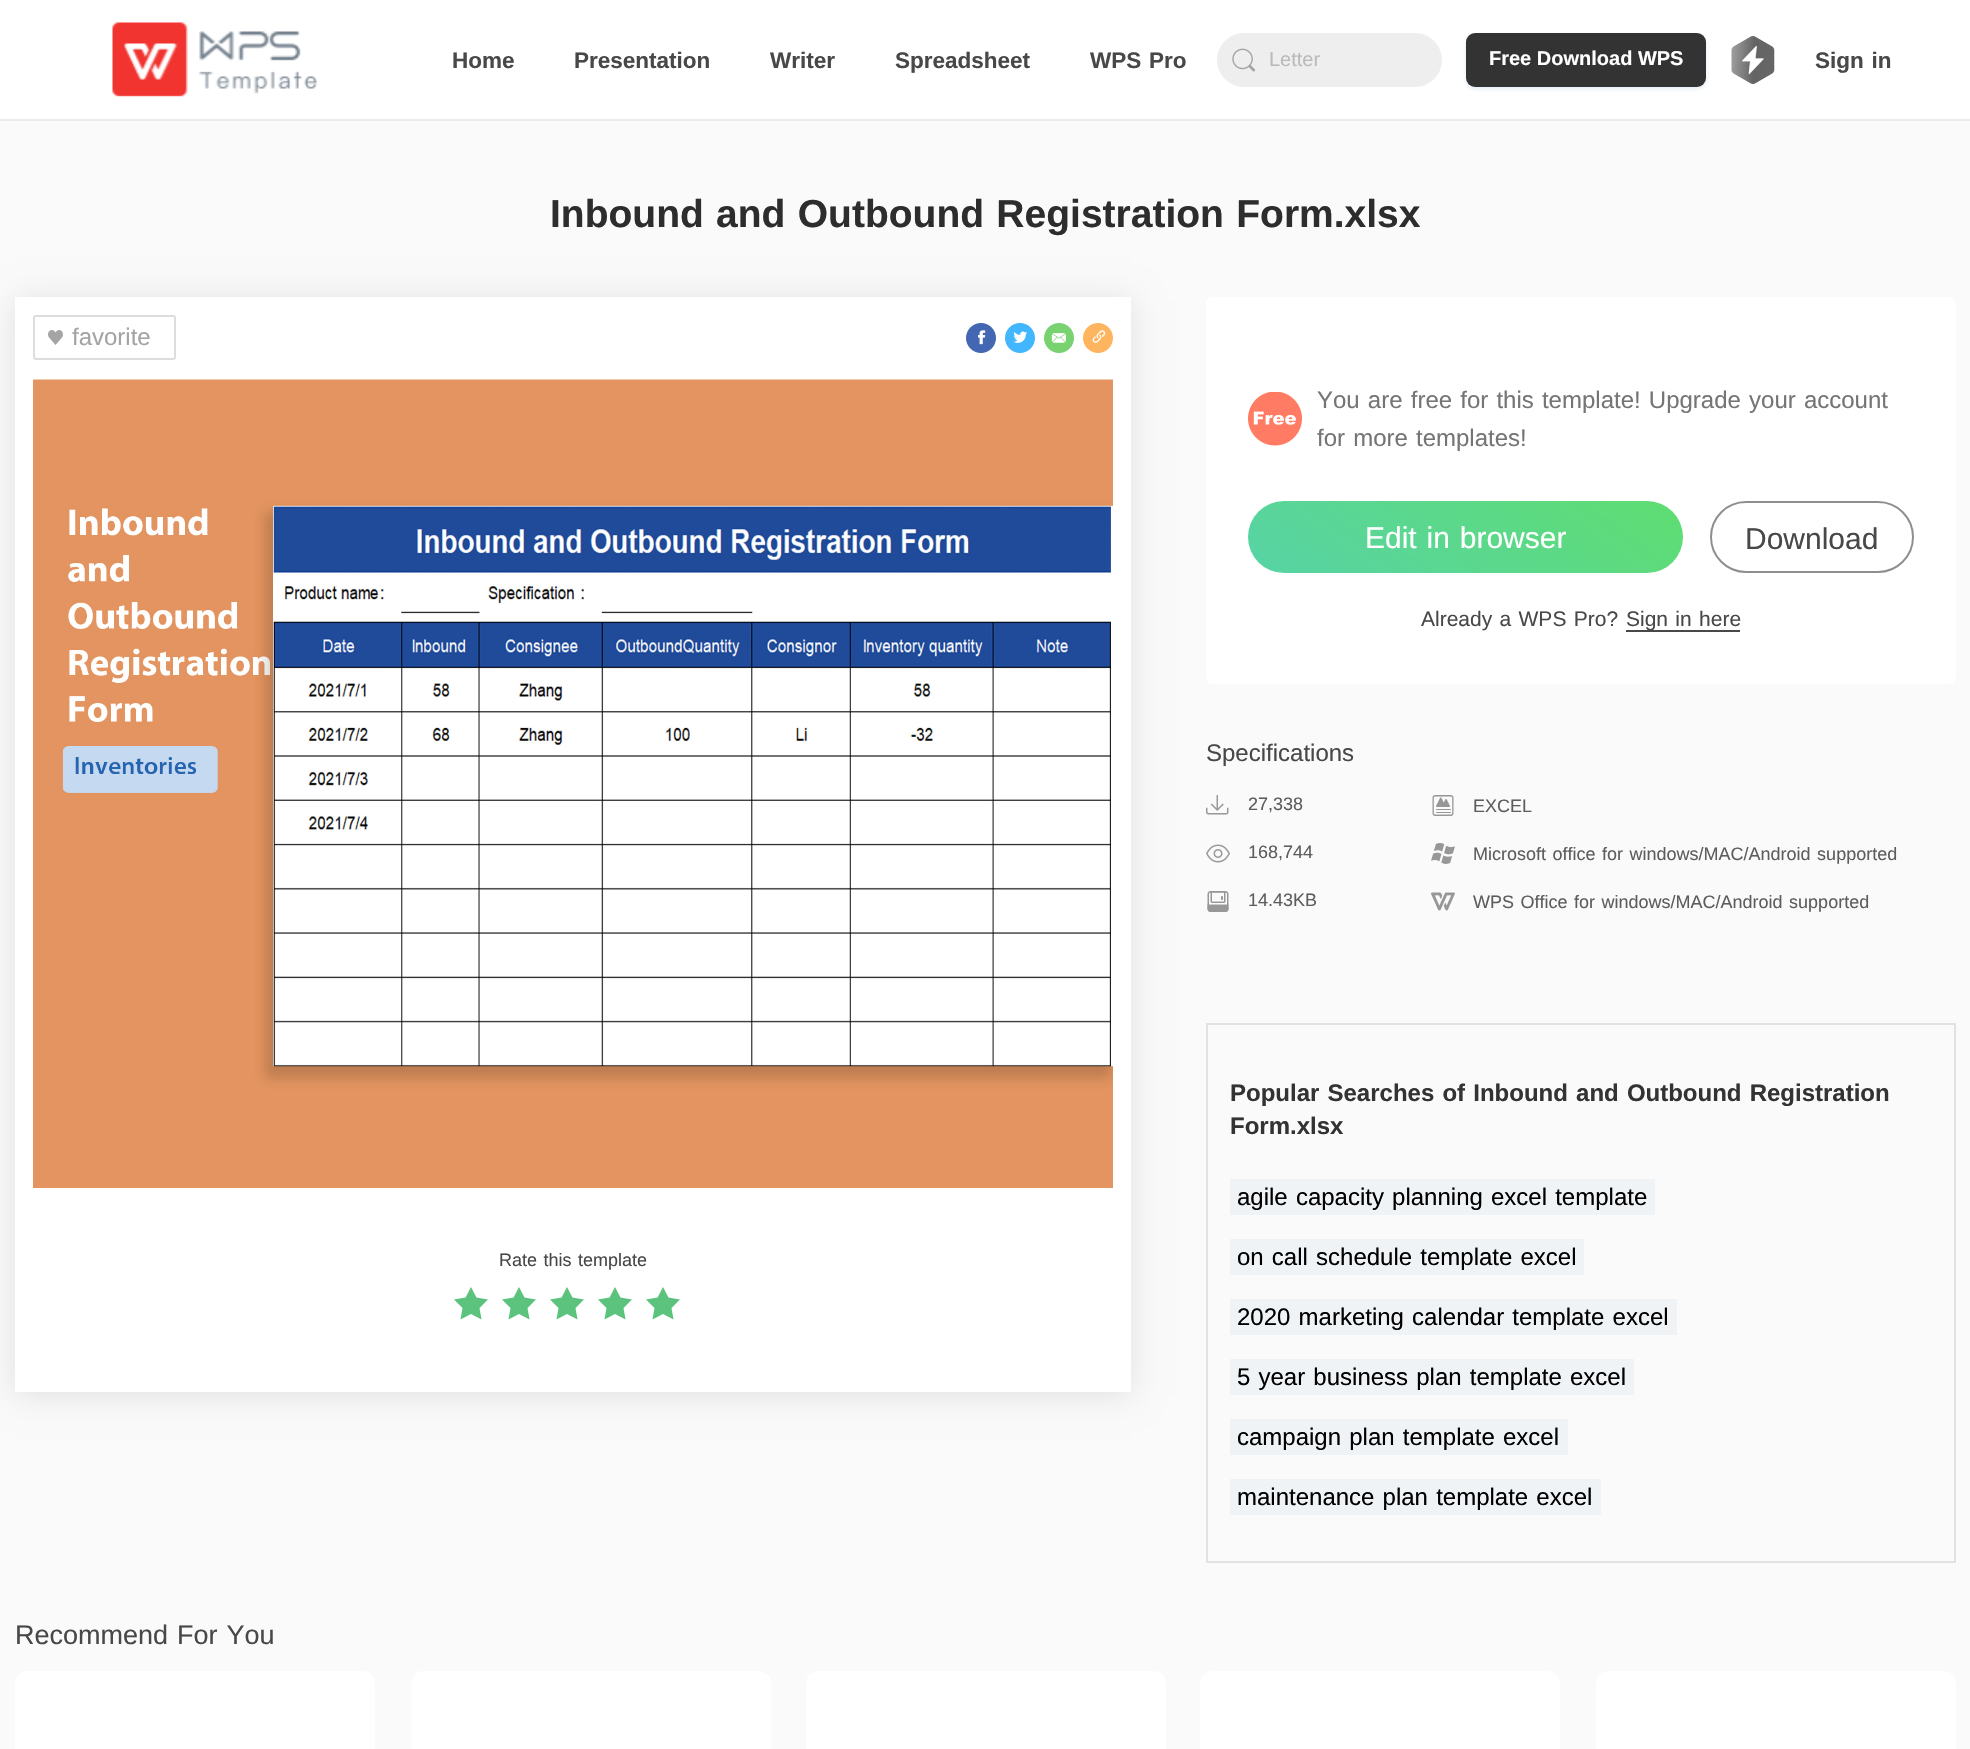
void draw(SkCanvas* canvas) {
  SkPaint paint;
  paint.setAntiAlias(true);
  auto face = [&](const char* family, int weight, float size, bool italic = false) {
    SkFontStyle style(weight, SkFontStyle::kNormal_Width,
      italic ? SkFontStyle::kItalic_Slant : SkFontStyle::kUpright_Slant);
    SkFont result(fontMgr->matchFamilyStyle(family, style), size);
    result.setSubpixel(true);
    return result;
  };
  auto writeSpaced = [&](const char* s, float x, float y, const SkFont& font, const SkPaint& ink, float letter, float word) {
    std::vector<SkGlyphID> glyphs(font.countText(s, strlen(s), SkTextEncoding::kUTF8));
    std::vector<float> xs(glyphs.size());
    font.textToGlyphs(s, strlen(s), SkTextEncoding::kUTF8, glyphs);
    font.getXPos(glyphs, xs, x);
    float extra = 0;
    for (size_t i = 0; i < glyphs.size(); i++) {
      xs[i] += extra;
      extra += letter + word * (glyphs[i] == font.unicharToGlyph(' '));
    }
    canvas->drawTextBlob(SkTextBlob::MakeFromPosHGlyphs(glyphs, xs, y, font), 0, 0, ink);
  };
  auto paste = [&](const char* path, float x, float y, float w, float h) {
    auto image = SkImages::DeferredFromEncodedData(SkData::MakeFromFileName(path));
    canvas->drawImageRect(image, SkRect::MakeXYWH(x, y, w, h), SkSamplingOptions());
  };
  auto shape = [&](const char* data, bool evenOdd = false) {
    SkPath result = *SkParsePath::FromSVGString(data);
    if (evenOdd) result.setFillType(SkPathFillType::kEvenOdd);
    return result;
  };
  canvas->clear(0xffffffff);
  paint.setColor(0xffebebeb);
  canvas->drawRect(SkRect::MakeXYWH(0, 119, 1970, 2), paint);
  paste("img/1.png", 112, 22, 205, 75);
  paint.setColor(0xffeeeeee);
  canvas->drawRoundRect(SkRect::MakeXYWH(1217, 33, 225, 54), 27, 27, paint);
  paste("img/2.png", 1232, 48, 23, 24);
  canvas->save();
  canvas->clipPath(shape("M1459 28H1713V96H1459ZM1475 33H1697C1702 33 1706 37 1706 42V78C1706 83 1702 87 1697 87H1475C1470 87 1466 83 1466 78V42C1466 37 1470 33 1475 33Z", true), true);
  paint.setColor(0x1a004fc9);
  paint.setMaskFilter(SkMaskFilter::MakeBlur(kNormal_SkBlurStyle, 2));
  canvas->drawRoundRect(SkRect::MakeXYWH(1466, 35, 240, 54), 9, 9, paint);
  paint.setMaskFilter(nullptr);
  canvas->restore();
  paint.setColor(0xcc000000);
  canvas->drawRoundRect(SkRect::MakeXYWH(1466, 33, 240, 54), 9, 9, paint);
  paste("img/3.png", 1731, 36, 44, 48);
  paint.setColor(0xfffafafa);
  canvas->drawRect(SkRect::MakeXYWH(0, 121, 1970, 1628), paint);
  paint.setColor(0x1a000000);
  paint.setMaskFilter(SkMaskFilter::MakeBlur(kNormal_SkBlurStyle, 15));
  canvas->drawRect(SkRect::MakeXYWH(15, 300, 1116, 1095), paint);
  paint.setMaskFilter(nullptr);
  paint.setColor(0xffffffff);
  canvas->drawRect(SkRect::MakeXYWH(15, 297, 1116, 1095), paint);
  paint.setStroke(true);
  paint.setStrokeWidth(2);
  paint.setColor(0xffdddddd);
  canvas->drawRoundRect(SkRect::MakeXYWH(34, 316, 141, 43), 2, 2, paint);
  paste("img/4.png", 48, 330, 15, 15);
  paste("img/5.png", 966, 323, 30, 30);
  paste("img/6.png", 1005, 323, 30, 30);
  paste("img/7.png", 1044, 323, 30, 30);
  paste("img/8.png", 1083, 323, 30, 30);
  paste("img/9.png", 33, 379, 1080, 809);
  paint.setStroke(false);
  paint.setColor(0xff5bc37d);
  canvas->drawPath(shape("M471 1314L460.5 1319.5L462.5 1308L454 1299.5L465.5 1297.5L471 1287L476.5 1297.5L488 1299.5L479.5 1308L481.5 1319.5Z", true), paint);
  canvas->drawPath(shape("M519 1314L508.5 1319.5L510.5 1308L502 1299.5L513.5 1297.5L519 1287L524.5 1297.5L536 1299.5L527.5 1308L529.5 1319.5Z", true), paint);
  canvas->drawPath(shape("M567 1314L556.5 1319.5L558.5 1308L550 1299.5L561.5 1297.5L567 1287L572.5 1297.5L584 1299.5L575.5 1308L577.5 1319.5Z", true), paint);
  canvas->drawPath(shape("M615 1314L604.5 1319.5L606.5 1308L598 1299.5L609.5 1297.5L615 1287L620.5 1297.5L632 1299.5L623.5 1308L625.5 1319.5Z", true), paint);
  canvas->drawPath(shape("M663 1314L652.5 1319.5L654.5 1308L646 1299.5L657.5 1297.5L663 1287L668.5 1297.5L680 1299.5L671.5 1308L673.5 1319.5Z", true), paint);
  paint.setColor(0xffffffff);
  canvas->drawRoundRect(SkRect::MakeXYWH(1206, 297, 750, 387), 6, 6, paint);
  paste("img/10.png", 1248, 392, 54, 54);
  {
    const SkColor colors[] = {0xff5fdd71, 0xff57d3a6};
    const float stops[] = {0, 1};
    const SkPoint ends[] = {{1558, 410}, {1373, 664}};
    paint.setShader(SkGradientShader::MakeLinear(ends, colors, stops, 2, SkTileMode::kClamp));
    paint.setAlpha(255);
  }
  canvas->drawRoundRect(SkRect::MakeXYWH(1248, 501, 435, 72), 36, 36, paint);
  paint.setStroke(true);
  paint.setShader(nullptr);
  paint.setColor(0xff8e8e8e);
  canvas->drawRoundRect(SkRect::MakeXYWH(1711, 502, 202, 70), 35, 35, paint);
  paint.setStroke(false);
  paint.setColor(0xff484848);
  canvas->drawRect(SkRect::MakeXYWH(1626, 630, 114, 2), paint);
  paste("img/11.png", 1206, 795, 23, 20);
  paste("img/12.png", 1432, 795, 22, 21);
  paste("img/13.png", 1206, 844, 24, 19);
  paste("img/14.png", 1431, 843, 24, 21);
  paste("img/15.png", 1207, 891, 22, 21);
  paste("img/16.png", 1431, 892, 24, 19);
  paint.setStroke(true);
  paint.setColor(0xffe2e2e2);
  canvas->drawRect(SkRect::MakeXYWH(1207, 1024, 748, 538), paint);
  paint.setStroke(false);
  {
    const struct { float x, y, w, h; SkColor color; } items[] = {
      {1230, 1179, 425, 36, 0xffeff3f6},
      {1230, 1239, 354, 36, 0xffeff3f6},
      {1230, 1299, 447, 36, 0xffeff3f6},
      {1230, 1359, 404, 36, 0xffeff3f6},
      {1230, 1419, 338, 36, 0xffeff3f6},
      {1230, 1479, 371, 36, 0xffeff3f6},
    };
    for (auto [x, y, w, h, color] : items) {
      paint.setColor(color);
      canvas->drawRect(SkRect::MakeXYWH(x, y, w, h), paint);
    }
  }
  paint.setColor(0xffffffff);
  canvas->drawRoundRect(SkRect::MakeXYWH(15, 1671, 360, 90), 12, 12, paint);
  canvas->drawRoundRect(SkRect::MakeXYWH(411, 1671, 360, 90), 12, 12, paint);
  canvas->drawRoundRect(SkRect::MakeXYWH(806, 1671, 360, 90), 12, 12, paint);
  canvas->drawRoundRect(SkRect::MakeXYWH(1200, 1671, 360, 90), 12, 12, paint);
  canvas->drawRoundRect(SkRect::MakeXYWH(1596, 1671, 360, 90), 12, 12, paint);
  auto f0 = face("Liberation Sans", 700, 22.5f);
  paint.setColor(0xff484848);
  {
    const struct { const char* s; float x, y; } items[] = {
      {"Home", 452, 68},
      {"Presentation", 574, 68},
      {"Writer", 770, 68},
      {"Spreadsheet", 895, 68},
    };
    for (auto [s, x, y] : items) {
      canvas->drawString(s, x, y, f0, paint);
    }
  }
  writeSpaced("WPS Pro", 1090, 68, f0, paint, 0, 1.5f);
  auto f1 = face("Liberation Sans", 400, 20);
  paint.setColor(0xffbababa);
  canvas->drawString("Letter", 1269, 66, f1, paint);
  auto f2 = face("Liberation Sans", 700, 20);
  paint.setColor(0xffffffff);
  canvas->drawString("Free Download WPS", 1489, 65, f2, paint);
  paint.setColor(0xff484848);
  writeSpaced("Sign in", 1815, 68, f0, paint, 0, 1.5f);
  auto f3 = face("Liberation Sans", 700, 39);
  paint.setColor(0xff2d2d2d);
  writeSpaced("Inbound and Outbound Registration Form.xlsx", 550, 227, f3, paint, 0, 1.5f);
  auto f4 = face("Liberation Sans", 400, 24);
  paint.setColor(0xffa4a4a4);
  canvas->drawString("favorite", 72, 345, f4, paint);
  auto f5 = face("Liberation Sans", 400, 18);
  paint.setColor(0xff484848);
  writeSpaced("Rate this template", 499, 1266, f5, paint, 0, 1.5f);
  paint.setColor(0xff757575);
  writeSpaced("You are free for this template! Upgrade your account", 1317, 408, f4, paint, 0, 1.5f);
  writeSpaced("for more", 1317, 446, f4, paint, 0, 1.5f);
  canvas->drawString("templates!", 1416, 446, f4, paint);
  auto f6 = face("Liberation Sans", 400, 30);
  paint.setColor(0xffffffff);
  writeSpaced("Edit in browser", 1365, 548, f6, paint, 0, 1.5f);
  paint.setColor(0xff484848);
  canvas->drawString("Download", 1745, 549, f6, paint);
  auto f7 = face("Liberation Sans", 400, 21);
  writeSpaced("Already a WPS Pro?", 1421, 626, f7, paint, 0, 1.5f);
  writeSpaced("Sign in here", 1626, 626, f7, paint, 0, 1.5f);
  canvas->drawString("Specifications", 1206, 761, f4, paint);
  paint.setColor(0xff5d5d5d);
  {
    const struct { const char* s; float x, y; } items[] = {
      {"27,338", 1248, 810},
      {"EXCEL", 1473, 812},
      {"168,744", 1248, 858},
    };
    for (auto [s, x, y] : items) {
      canvas->drawString(s, x, y, f5, paint);
    }
  }
  writeSpaced("Microsoft office for windows/MAC/Android supported", 1473, 860, f5, paint, 0, 1.5f);
  canvas->drawString("14.43KB", 1248, 906, f5, paint);
  writeSpaced("WPS Office for windows/MAC/Android supported", 1473, 908, f5, paint, 0, 1.5f);
  auto f8 = face("Liberation Sans", 700, 24);
  paint.setColor(0xff333333);
  writeSpaced("Popular Searches of Inbound and Outbound Registration", 1230, 1101, f8, paint, 0, 1.5f);
  canvas->drawString("Form.xlsx", 1230, 1134, f8, paint);
  paint.setColor(0xff000000);
  {
    const struct { const char* s; float x, y; } items[] = {
      {"agile capacity planning excel template", 1237, 1205},
      {"on call schedule template excel", 1237, 1265},
      {"2020 marketing calendar template excel", 1237, 1325},
      {"5 year business plan template excel", 1237, 1385},
      {"campaign plan template excel", 1237, 1445},
      {"maintenance plan template excel", 1237, 1505},
    };
    for (auto [s, x, y] : items) {
      writeSpaced(s, x, y, f4, paint, 0, 1.5f);
    }
  }
  auto f9 = face("Liberation Sans", 400, 27);
  paint.setColor(0xff484848);
  writeSpaced("Recommend For You", 15, 1644, f9, paint, 0, 1.5f);
}
